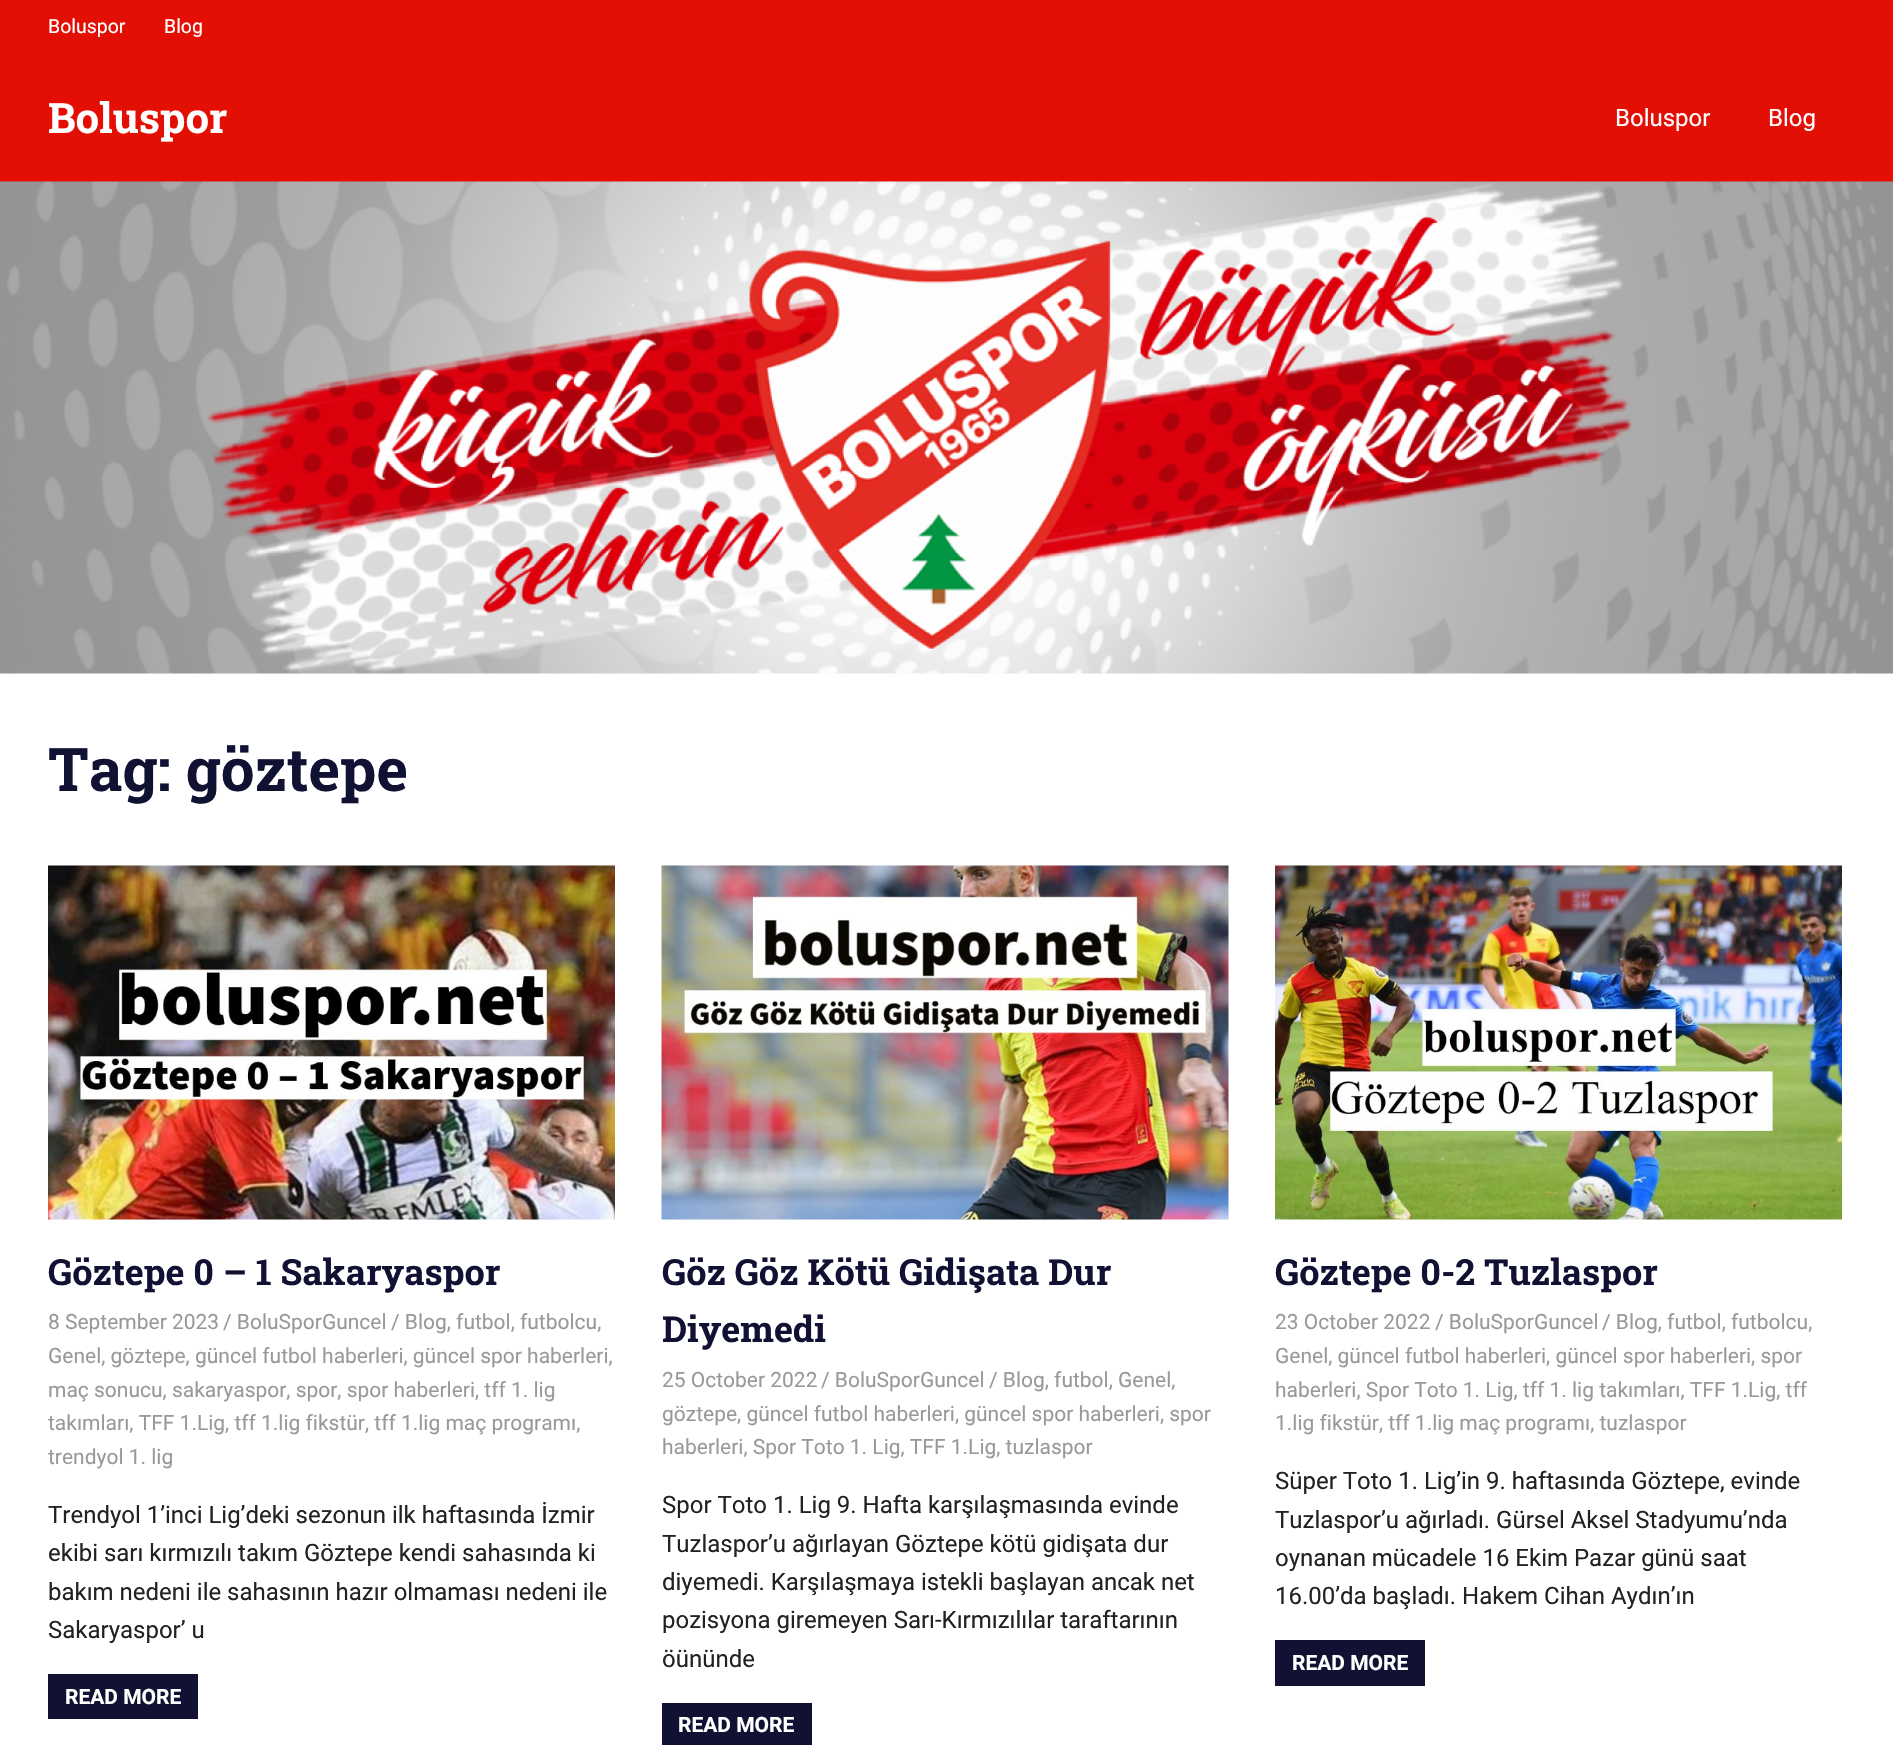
void draw(SkCanvas* canvas) {
  SkPaint paint;
  paint.setAntiAlias(true);
  auto face = [&](const char* family, int weight, float size, bool italic = false) {
    SkFontStyle style(weight, SkFontStyle::kNormal_Width,
      italic ? SkFontStyle::kItalic_Slant : SkFontStyle::kUpright_Slant);
    SkFont result(fontMgr->matchFamilyStyle(family, style), size);
    result.setSubpixel(true);
    return result;
  };
  auto paste = [&](const char* path, float x, float y, float w, float h) {
    auto image = SkImages::DeferredFromEncodedData(SkData::MakeFromFileName(path));
    canvas->drawImageRect(image, SkRect::MakeXYWH(x, y, w, h), SkSamplingOptions());
  };
  canvas->clear(0xffffffff);
  paint.setColor(0xffe40f04);
  canvas->drawRect(SkRect::MakeXYWH(0, 0, 1893, 54), paint);
  paint.setColor(0xffe30e04);
  canvas->drawRect(SkRect::MakeXYWH(0, 54, 1893, 128), paint);
  paste("img/1.png", 0, 181, 1893, 493);
  paste("img/2.png", 48, 865, 567, 355);
  paint.setColor(0xff111133);
  canvas->drawRect(SkRect::MakeXYWH(48, 1674, 150, 45), paint);
  paste("img/3.png", 661, 865, 568, 355);
  canvas->drawRect(SkRect::MakeXYWH(662, 1703, 150, 42), paint);
  paste("img/4.png", 1275, 865, 567, 355);
  canvas->drawRect(SkRect::MakeXYWH(1275, 1640, 150, 46), paint);
  auto f0 = face("Roboto", 400, 19.5f);
  paint.setColor(0xffffffff);
  canvas->drawString("Boluspor", 48, 33, f0, paint);
  canvas->drawString("Blog", 164, 33, f0, paint);
  auto f1 = face("Roboto Slab", 700, 42);
  canvas->drawString("Boluspor", 48, 133, f1, paint);
  auto f2 = face("Roboto", 400, 24);
  canvas->drawString("Boluspor", 1615, 126, f2, paint);
  canvas->drawString("Blog", 1768, 126, f2, paint);
  auto f3 = face("Roboto Slab", 700, 60);
  paint.setColor(0xff111133);
  canvas->drawString("Tag: göztepe", 48, 791, f3, paint);
  auto f4 = face("Roboto Slab", 700, 36);
  canvas->drawString("Göztepe 0 – 1 Sakaryaspor", 48, 1285, f4, paint);
  auto f5 = face("Roboto", 400, 21);
  paint.setColor(0xff999999);
  {
    const struct { const char* s; float x, y; } items[] = {
      {"8 September 2023", 48, 1329},
      {"/ BoluSporGuncel", 223, 1329},
      {"/ Blog, futbol, futbolcu,", 391, 1329},
      {"Genel, göztepe, güncel futbol haberleri, güncel spor haberleri,", 48, 1363},
      {"maç sonucu, sakaryaspor, spor, spor haberleri, tff 1. lig", 48, 1397},
      {"takımları, TFF 1.Lig, tff 1.lig fikstür, tff 1.lig maç programı,", 48, 1430},
      {"trendyol 1. lig", 48, 1464},
    };
    for (auto [s, x, y] : items) {
      canvas->drawString(s, x, y, f5, paint);
    }
  }
  paint.setColor(0xff222222);
  {
    const struct { const char* s; float x, y; } items[] = {
      {"Trendyol 1’inci Lig’deki sezonun ilk haftasında İzmir", 48, 1523},
      {"ekibi sarı kırmızılı takım Göztepe kendi sahasında ki", 48, 1561},
      {"bakım nedeni ile sahasının hazır olmaması nedeni ile", 48, 1600},
      {"Sakaryaspor’ u", 48, 1638},
    };
    for (auto [s, x, y] : items) {
      canvas->drawString(s, x, y, f2, paint);
    }
  }
  auto f6 = face("Roboto", 700, 21);
  paint.setColor(0xffffffff);
  canvas->drawString("READ MORE", 65, 1704, f6, paint);
  paint.setColor(0xff111133);
  canvas->drawString("Göz Göz Kötü Gidişata Dur", 662, 1285, f4, paint);
  canvas->drawString("Diyemedi", 662, 1342, f4, paint);
  paint.setColor(0xff999999);
  {
    const struct { const char* s; float x, y; } items[] = {
      {"25 October 2022", 662, 1387},
      {"/ BoluSporGuncel", 821, 1387},
      {"/ Blog, futbol, Genel,", 989, 1387},
      {"göztepe, güncel futbol haberleri, güncel spor haberleri, spor", 662, 1421},
      {"haberleri, Spor Toto 1. Lig, TFF 1.Lig, tuzlaspor", 662, 1454},
    };
    for (auto [s, x, y] : items) {
      canvas->drawString(s, x, y, f5, paint);
    }
  }
  paint.setColor(0xff222222);
  {
    const struct { const char* s; float x, y; } items[] = {
      {"Spor Toto 1. Lig 9. Hafta karşılaşmasında evinde", 662, 1513},
      {"Tuzlaspor’u ağırlayan Göztepe kötü gidişata dur", 662, 1552},
      {"diyemedi. Karşılaşmaya istekli başlayan ancak net", 662, 1590},
      {"pozisyona giremeyen Sarı-Kırmızılılar taraftarının", 662, 1628},
      {"öününde", 662, 1667},
    };
    for (auto [s, x, y] : items) {
      canvas->drawString(s, x, y, f2, paint);
    }
  }
  paint.setColor(0xffffffff);
  canvas->drawString("READ MORE", 678, 1732, f6, paint);
  paint.setColor(0xff111133);
  canvas->drawString("Göztepe 0-2 Tuzlaspor", 1275, 1285, f4, paint);
  paint.setColor(0xff999999);
  {
    const struct { const char* s; float x, y; } items[] = {
      {"23 October 2022", 1275, 1329},
      {"/ BoluSporGuncel", 1435, 1329},
      {"/ Blog, futbol, futbolcu,", 1602, 1329},
      {"Genel, güncel futbol haberleri, güncel spor haberleri, spor", 1275, 1363},
      {"haberleri, Spor Toto 1. Lig, tff 1. lig takımları, TFF 1.Lig, tff", 1275, 1397},
      {"1.lig fikstür, tff 1.lig maç programı, tuzlaspor", 1275, 1430},
    };
    for (auto [s, x, y] : items) {
      canvas->drawString(s, x, y, f5, paint);
    }
  }
  paint.setColor(0xff222222);
  {
    const struct { const char* s; float x, y; } items[] = {
      {"Süper Toto 1. Lig’in 9. haftasında Göztepe, evinde", 1275, 1489},
      {"Tuzlaspor’u ağırladı. Gürsel Aksel Stadyumu’nda", 1275, 1528},
      {"oynanan mücadele 16 Ekim Pazar günü saat", 1275, 1566},
      {"16.00’da başladı. Hakem Cihan Aydın’ın", 1275, 1604},
    };
    for (auto [s, x, y] : items) {
      canvas->drawString(s, x, y, f2, paint);
    }
  }
  paint.setColor(0xffffffff);
  canvas->drawString("READ MORE", 1292, 1670, f6, paint);
}
